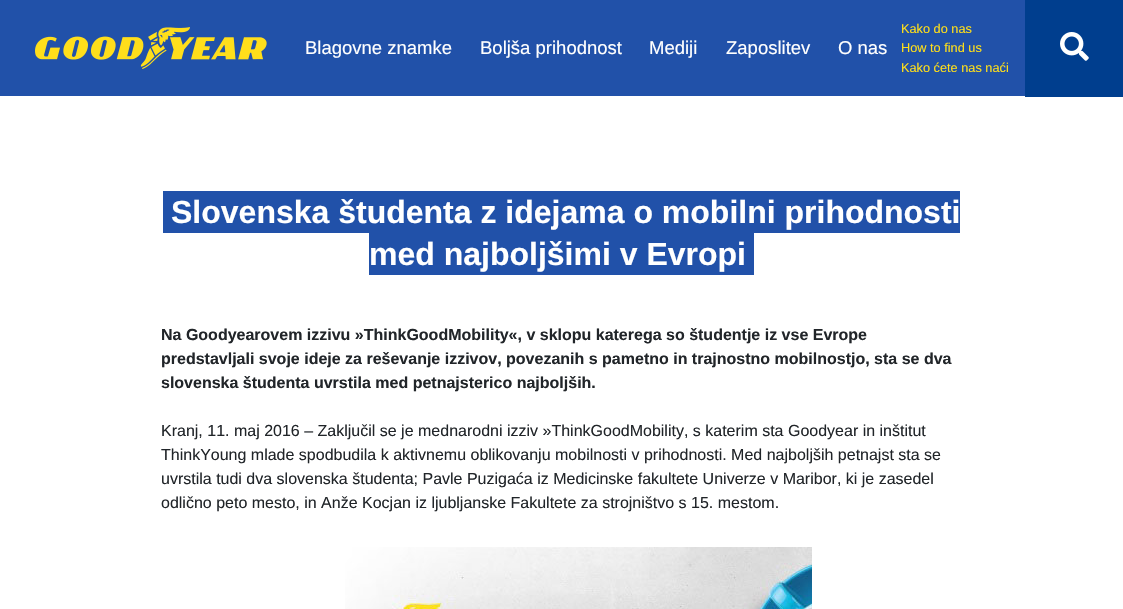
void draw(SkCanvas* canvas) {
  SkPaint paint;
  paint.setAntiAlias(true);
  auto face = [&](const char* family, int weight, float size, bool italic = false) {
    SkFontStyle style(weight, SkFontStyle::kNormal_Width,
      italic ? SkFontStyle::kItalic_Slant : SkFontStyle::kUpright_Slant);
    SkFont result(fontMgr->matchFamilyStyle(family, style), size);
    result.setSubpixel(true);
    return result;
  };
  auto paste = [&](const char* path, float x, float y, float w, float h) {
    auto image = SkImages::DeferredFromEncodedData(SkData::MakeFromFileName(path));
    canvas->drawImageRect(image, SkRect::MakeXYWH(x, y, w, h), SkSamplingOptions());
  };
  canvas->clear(0xffffffff);
  paint.setColor(0xff2151a9);
  canvas->drawRect(SkRect::MakeXYWH(0, 0, 1025, 96), paint);
  paste("img/1.png", 35, 27, 232, 42);
  paint.setColor(0xff003e8e);
  canvas->drawRect(SkRect::MakeXYWH(1025, 0, 98, 97), paint);
  paste("img/2.png", 1060, 32, 29, 29);
  paint.setColor(0xff2151a9);
  canvas->drawRect(SkRect::MakeXYWH(163, 191, 797, 42), paint);
  canvas->drawRect(SkRect::MakeXYWH(369, 233, 385, 42), paint);
  paste("img/3.png", 345, 547, 467, 62);
  auto f0 = face("Liberation Sans", 400, 18.5f);
  paint.setColor(0xffffffff);
  {
    const struct { const char* s; float x, y; } items[] = {
      {"Blagovne znamke", 305, 54},
      {"Boljša prihodnost", 480, 54},
      {"Mediji", 649, 54},
      {"Zaposlitev", 726, 54},
      {"O nas", 838, 54},
    };
    for (auto [s, x, y] : items) {
      canvas->drawString(s, x, y, f0, paint);
    }
  }
  auto f1 = face("Liberation Sans", 400, 12.75f);
  paint.setColor(0xffffdf19);
  {
    const struct { const char* s; float x, y; } items[] = {
      {"Kako do nas", 901, 33},
      {"How to find us", 901, 52},
      {"Kako ćete nas naći", 901, 72},
    };
    for (auto [s, x, y] : items) {
      canvas->drawString(s, x, y, f1, paint);
    }
  }
  auto f2 = face("Liberation Sans", 700, 32);
  paint.setColor(0xffffffff);
  canvas->drawString("Slovenska študenta z idejama o mobilni prihodnosti", 171, 223, f2, paint);
  canvas->drawString("med najboljšimi v Evropi", 369, 265, f2, paint);
  auto f3 = face("Liberation Sans", 700, 16);
  paint.setColor(0xff212529);
  {
    const struct { const char* s; float x, y; } items[] = {
      {"Na Goodyearovem izzivu »ThinkGoodMobility«, v sklopu katerega so študentje iz vse Evrope", 161, 340},
      {"predstavljali svoje ideje za reševanje izzivov, povezanih s pametno in trajnostno mobilnostjo, sta se dva", 161, 364},
      {"slovenska študenta uvrstila med petnajsterico najboljših.", 161, 388},
    };
    for (auto [s, x, y] : items) {
      canvas->drawString(s, x, y, f3, paint);
    }
  }
  auto f4 = face("Liberation Sans", 400, 16);
  {
    const struct { const char* s; float x, y; } items[] = {
      {"Kranj, 11. maj 2016 – Zaključil se je mednarodni izziv »ThinkGoodMobility, s katerim sta Goodyear in inštitut", 161, 436},
      {"ThinkYoung mlade spodbudila k aktivnemu oblikovanju mobilnosti v prihodnosti. Med najboljših petnajst sta se", 161, 460},
      {"uvrstila tudi dva slovenska študenta; Pavle Puzigaća iz Medicinske fakultete Univerze v Maribor, ki je zasedel", 161, 484},
      {"odlično peto mesto, in Anže Kocjan iz ljubljanske Fakultete za strojništvo s 15. mestom.", 161, 508},
    };
    for (auto [s, x, y] : items) {
      canvas->drawString(s, x, y, f4, paint);
    }
  }
}
